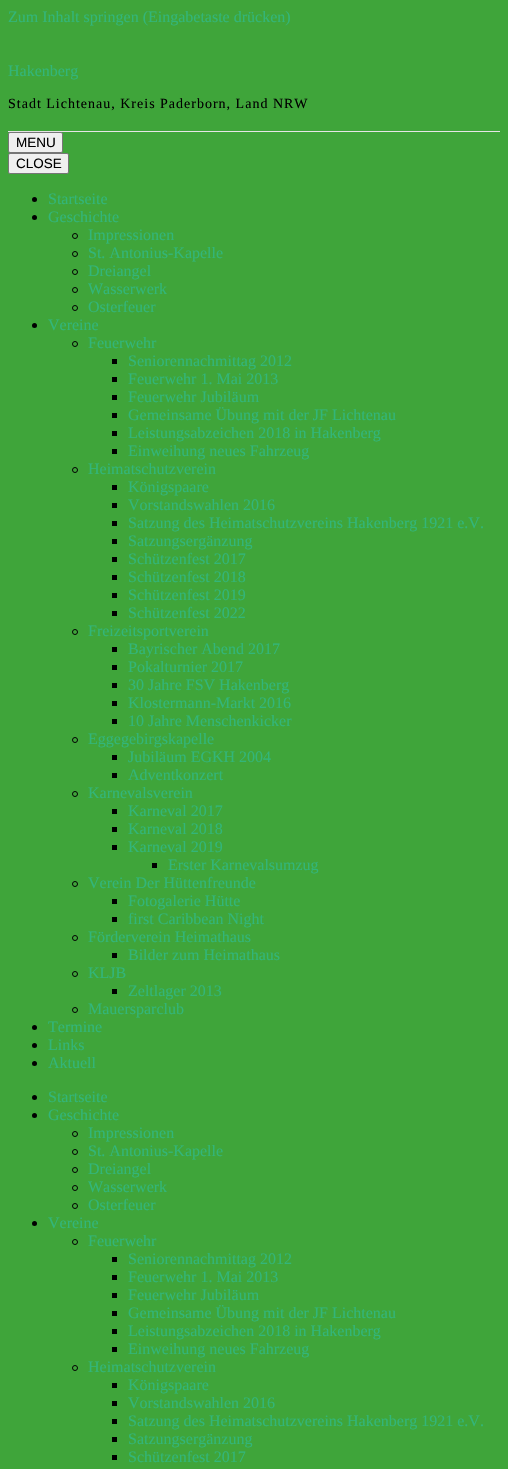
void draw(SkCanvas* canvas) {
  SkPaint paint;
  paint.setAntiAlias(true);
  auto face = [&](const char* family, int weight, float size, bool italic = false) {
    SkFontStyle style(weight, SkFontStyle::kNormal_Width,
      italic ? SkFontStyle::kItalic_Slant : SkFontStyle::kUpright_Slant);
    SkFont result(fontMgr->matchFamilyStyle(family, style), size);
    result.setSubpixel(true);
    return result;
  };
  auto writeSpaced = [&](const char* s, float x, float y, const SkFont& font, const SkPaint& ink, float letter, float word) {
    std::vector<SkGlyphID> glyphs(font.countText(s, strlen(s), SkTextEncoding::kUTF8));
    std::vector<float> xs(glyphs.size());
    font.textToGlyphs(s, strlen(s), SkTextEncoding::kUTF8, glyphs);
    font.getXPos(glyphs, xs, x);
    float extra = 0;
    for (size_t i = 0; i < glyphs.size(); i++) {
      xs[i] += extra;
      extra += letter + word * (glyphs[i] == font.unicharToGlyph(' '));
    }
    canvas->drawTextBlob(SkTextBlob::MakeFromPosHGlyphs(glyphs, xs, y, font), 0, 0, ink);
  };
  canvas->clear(0xff3fa53a);
  paint.setColor(0xffe5e5e5);
  canvas->drawRect(SkRect::MakeXYWH(8, 131, 492, 1), paint);
  paint.setColor(0xffefefef);
  canvas->drawRoundRect(SkRect::MakeXYWH(8.5f, 132.5f, 54, 20), 1.5f, 1.5f, paint);
  paint.setStroke(true);
  paint.setStrokeWidth(1);
  paint.setColor(0xff767676);
  canvas->drawRoundRect(SkRect::MakeXYWH(8.5f, 132.5f, 54, 20), 1.5f, 1.5f, paint);
  paint.setStroke(false);
  paint.setColor(0xffefefef);
  canvas->drawRoundRect(SkRect::MakeXYWH(8.5f, 153.5f, 60, 20), 1.5f, 1.5f, paint);
  paint.setStroke(true);
  paint.setColor(0xff767676);
  canvas->drawRoundRect(SkRect::MakeXYWH(8.5f, 153.5f, 60, 20), 1.5f, 1.5f, paint);
  paint.setStroke(false);
  paint.setColor(0xff000000);
  canvas->drawCircle(34.5f, 199.5f, 2.5f, paint);
  canvas->drawCircle(34.5f, 217.5f, 2.5f, paint);
  paint.setStroke(true);
  canvas->drawCircle(75, 236, 2.5f, paint);
  canvas->drawCircle(75, 254, 2.5f, paint);
  canvas->drawCircle(75, 272, 2.5f, paint);
  canvas->drawCircle(75, 290, 2.5f, paint);
  canvas->drawCircle(75, 308, 2.5f, paint);
  paint.setStroke(false);
  canvas->drawCircle(34.5f, 325.5f, 2.5f, paint);
  paint.setStroke(true);
  canvas->drawCircle(75, 344, 2.5f, paint);
  paint.setStroke(false);
  {
    const struct { float x, y, w, h; SkColor color; } items[] = {
      {112, 359, 5, 5, 0xff000000},
      {112, 377, 5, 5, 0xff000000},
      {112, 395, 5, 5, 0xff000000},
      {112, 413, 5, 5, 0xff000000},
      {112, 431, 5, 5, 0xff000000},
      {112, 449, 5, 5, 0xff000000},
    };
    for (auto [x, y, w, h, color] : items) {
      paint.setColor(color);
      canvas->drawRect(SkRect::MakeXYWH(x, y, w, h), paint);
    }
  }
  paint.setStroke(true);
  canvas->drawCircle(75, 470, 2.5f, paint);
  paint.setStroke(false);
  {
    const struct { float x, y, w, h; SkColor color; } items[] = {
      {112, 485, 5, 5, 0xff000000},
      {112, 503, 5, 5, 0xff000000},
      {112, 521, 5, 5, 0xff000000},
      {112, 539, 5, 5, 0xff000000},
      {112, 557, 5, 5, 0xff000000},
      {112, 575, 5, 5, 0xff000000},
      {112, 593, 5, 5, 0xff000000},
      {112, 611, 5, 5, 0xff000000},
    };
    for (auto [x, y, w, h, color] : items) {
      paint.setColor(color);
      canvas->drawRect(SkRect::MakeXYWH(x, y, w, h), paint);
    }
  }
  paint.setStroke(true);
  canvas->drawCircle(75, 632, 2.5f, paint);
  paint.setStroke(false);
  {
    const struct { float x, y, w, h; SkColor color; } items[] = {
      {112, 647, 5, 5, 0xff000000},
      {112, 665, 5, 5, 0xff000000},
      {112, 683, 5, 5, 0xff000000},
      {112, 701, 5, 5, 0xff000000},
      {112, 719, 5, 5, 0xff000000},
    };
    for (auto [x, y, w, h, color] : items) {
      paint.setColor(color);
      canvas->drawRect(SkRect::MakeXYWH(x, y, w, h), paint);
    }
  }
  paint.setStroke(true);
  canvas->drawCircle(75, 740, 2.5f, paint);
  paint.setStroke(false);
  canvas->drawRect(SkRect::MakeXYWH(112, 755, 5, 5), paint);
  canvas->drawRect(SkRect::MakeXYWH(112, 773, 5, 5), paint);
  paint.setStroke(true);
  canvas->drawCircle(75, 794, 2.5f, paint);
  paint.setStroke(false);
  {
    const struct { float x, y, w, h; SkColor color; } items[] = {
      {112, 809, 5, 5, 0xff000000},
      {112, 827, 5, 5, 0xff000000},
      {112, 845, 5, 5, 0xff000000},
      {152, 863, 5, 5, 0xff000000},
    };
    for (auto [x, y, w, h, color] : items) {
      paint.setColor(color);
      canvas->drawRect(SkRect::MakeXYWH(x, y, w, h), paint);
    }
  }
  paint.setStroke(true);
  canvas->drawCircle(75, 884, 2.5f, paint);
  paint.setStroke(false);
  canvas->drawRect(SkRect::MakeXYWH(112, 899, 5, 5), paint);
  canvas->drawRect(SkRect::MakeXYWH(112, 917, 5, 5), paint);
  paint.setStroke(true);
  canvas->drawCircle(75, 938, 2.5f, paint);
  paint.setStroke(false);
  canvas->drawRect(SkRect::MakeXYWH(112, 953, 5, 5), paint);
  paint.setStroke(true);
  canvas->drawCircle(75, 974, 2.5f, paint);
  paint.setStroke(false);
  canvas->drawRect(SkRect::MakeXYWH(112, 989, 5, 5), paint);
  paint.setStroke(true);
  canvas->drawCircle(75, 1010, 2.5f, paint);
  paint.setStroke(false);
  canvas->drawCircle(34.5f, 1027.5f, 2.5f, paint);
  canvas->drawCircle(34.5f, 1045.5f, 2.5f, paint);
  canvas->drawCircle(34.5f, 1063.5f, 2.5f, paint);
  canvas->drawCircle(34.5f, 1097.5f, 2.5f, paint);
  canvas->drawCircle(34.5f, 1115.5f, 2.5f, paint);
  paint.setStroke(true);
  canvas->drawCircle(75, 1134, 2.5f, paint);
  canvas->drawCircle(75, 1152, 2.5f, paint);
  canvas->drawCircle(75, 1170, 2.5f, paint);
  canvas->drawCircle(75, 1188, 2.5f, paint);
  canvas->drawCircle(75, 1206, 2.5f, paint);
  paint.setStroke(false);
  canvas->drawCircle(34.5f, 1223.5f, 2.5f, paint);
  paint.setStroke(true);
  canvas->drawCircle(75, 1242, 2.5f, paint);
  paint.setStroke(false);
  {
    const struct { float x, y, w, h; SkColor color; } items[] = {
      {112, 1257, 5, 5, 0xff000000},
      {112, 1275, 5, 5, 0xff000000},
      {112, 1293, 5, 5, 0xff000000},
      {112, 1311, 5, 5, 0xff000000},
      {112, 1329, 5, 5, 0xff000000},
      {112, 1347, 5, 5, 0xff000000},
    };
    for (auto [x, y, w, h, color] : items) {
      paint.setColor(color);
      canvas->drawRect(SkRect::MakeXYWH(x, y, w, h), paint);
    }
  }
  paint.setStroke(true);
  canvas->drawCircle(75, 1368, 2.5f, paint);
  paint.setStroke(false);
  {
    const struct { float x, y, w, h; SkColor color; } items[] = {
      {112, 1383, 5, 5, 0xff000000},
      {112, 1401, 5, 5, 0xff000000},
      {112, 1419, 5, 5, 0xff000000},
      {112, 1437, 5, 5, 0xff000000},
      {112, 1455, 5, 5, 0xff000000},
    };
    for (auto [x, y, w, h, color] : items) {
      paint.setColor(color);
      canvas->drawRect(SkRect::MakeXYWH(x, y, w, h), paint);
    }
  }
  auto f0 = face("Liberation Serif", 400, 16);
  paint.setColor(0xff32b67a);
  canvas->drawString("Zum Inhalt springen (Eingabetaste drücken)", 8, 22, f0, paint);
  canvas->drawString("Hakenberg", 8, 76, f0, paint);
  auto f1 = face("Liberation Serif", 400, 14);
  paint.setColor(0xff000000);
  writeSpaced("Stadt Lichtenau, Kreis Paderborn, Land NRW", 8, 108, f1, paint, 1, 0);
  auto f2 = face("Liberation Sans", 400, 13.5f);
  canvas->drawString("MENU", 16, 147, f2, paint);
  canvas->drawString("CLOSE", 16, 168, f2, paint);
  paint.setColor(0xff32b67a);
  {
    const struct { const char* s; float x, y; } items[] = {
      {"Startseite", 48, 204},
      {"Geschichte", 48, 222},
      {"Impressionen", 88, 240},
      {"St. Antonius-Kapelle", 88, 258},
      {"Dreiangel", 88, 276},
      {"Wasserwerk", 88, 294},
      {"Osterfeuer", 88, 312},
      {"Vereine", 48, 330},
      {"Feuerwehr", 88, 348},
      {"Seniorennachmittag 2012", 128, 366},
      {"Feuerwehr 1. Mai 2013", 128, 384},
      {"Feuerwehr Jubiläum", 128, 402},
      {"Gemeinsame Übung mit der JF Lichtenau", 128, 420},
      {"Leistungsabzeichen 2018 in Hakenberg", 128, 438},
      {"Einweihung neues Fahrzeug", 128, 456},
      {"Heimatschutzverein", 88, 474},
      {"Königspaare", 128, 492},
      {"Vorstandswahlen 2016", 128, 510},
      {"Satzung des Heimatschutzvereins Hakenberg 1921 e.V.", 128, 528},
      {"Satzungsergänzung", 128, 546},
      {"Schützenfest 2017", 128, 564},
      {"Schützenfest 2018", 128, 582},
      {"Schützenfest 2019", 128, 600},
      {"Schützenfest 2022", 128, 618},
      {"Freizeitsportverein", 88, 636},
      {"Bayrischer Abend 2017", 128, 654},
      {"Pokalturnier 2017", 128, 672},
      {"30 Jahre FSV Hakenberg", 128, 690},
      {"Klostermann-Markt 2016", 128, 708},
      {"10 Jahre Menschenkicker", 128, 726},
      {"Eggegebirgskapelle", 88, 744},
      {"Jubiläum EGKH 2004", 128, 762},
      {"Adventkonzert", 128, 780},
      {"Karnevalsverein", 88, 798},
      {"Karneval 2017", 128, 816},
      {"Karneval 2018", 128, 834},
      {"Karneval 2019", 128, 852},
      {"Erster Karnevalsumzug", 168, 870},
      {"Verein Der Hüttenfreunde", 88, 888},
      {"Fotogalerie Hütte", 128, 906},
      {"first Caribbean Night", 128, 924},
      {"Förderverein Heimathaus", 88, 942},
      {"Bilder zum Heimathaus", 128, 960},
      {"KLJB", 88, 978},
      {"Zeltlager 2013", 128, 996},
      {"Mauersparclub", 88, 1014},
      {"Termine", 48, 1032},
      {"Links", 48, 1050},
      {"Aktuell", 48, 1068},
      {"Startseite", 48, 1102},
      {"Geschichte", 48, 1120},
      {"Impressionen", 88, 1138},
      {"St. Antonius-Kapelle", 88, 1156},
      {"Dreiangel", 88, 1174},
      {"Wasserwerk", 88, 1192},
      {"Osterfeuer", 88, 1210},
      {"Vereine", 48, 1228},
      {"Feuerwehr", 88, 1246},
      {"Seniorennachmittag 2012", 128, 1264},
      {"Feuerwehr 1. Mai 2013", 128, 1282},
      {"Feuerwehr Jubiläum", 128, 1300},
      {"Gemeinsame Übung mit der JF Lichtenau", 128, 1318},
      {"Leistungsabzeichen 2018 in Hakenberg", 128, 1336},
      {"Einweihung neues Fahrzeug", 128, 1354},
      {"Heimatschutzverein", 88, 1372},
      {"Königspaare", 128, 1390},
      {"Vorstandswahlen 2016", 128, 1408},
      {"Satzung des Heimatschutzvereins Hakenberg 1921 e.V.", 128, 1426},
      {"Satzungsergänzung", 128, 1444},
      {"Schützenfest 2017", 128, 1462},
    };
    for (auto [s, x, y] : items) {
      canvas->drawString(s, x, y, f0, paint);
    }
  }
}
